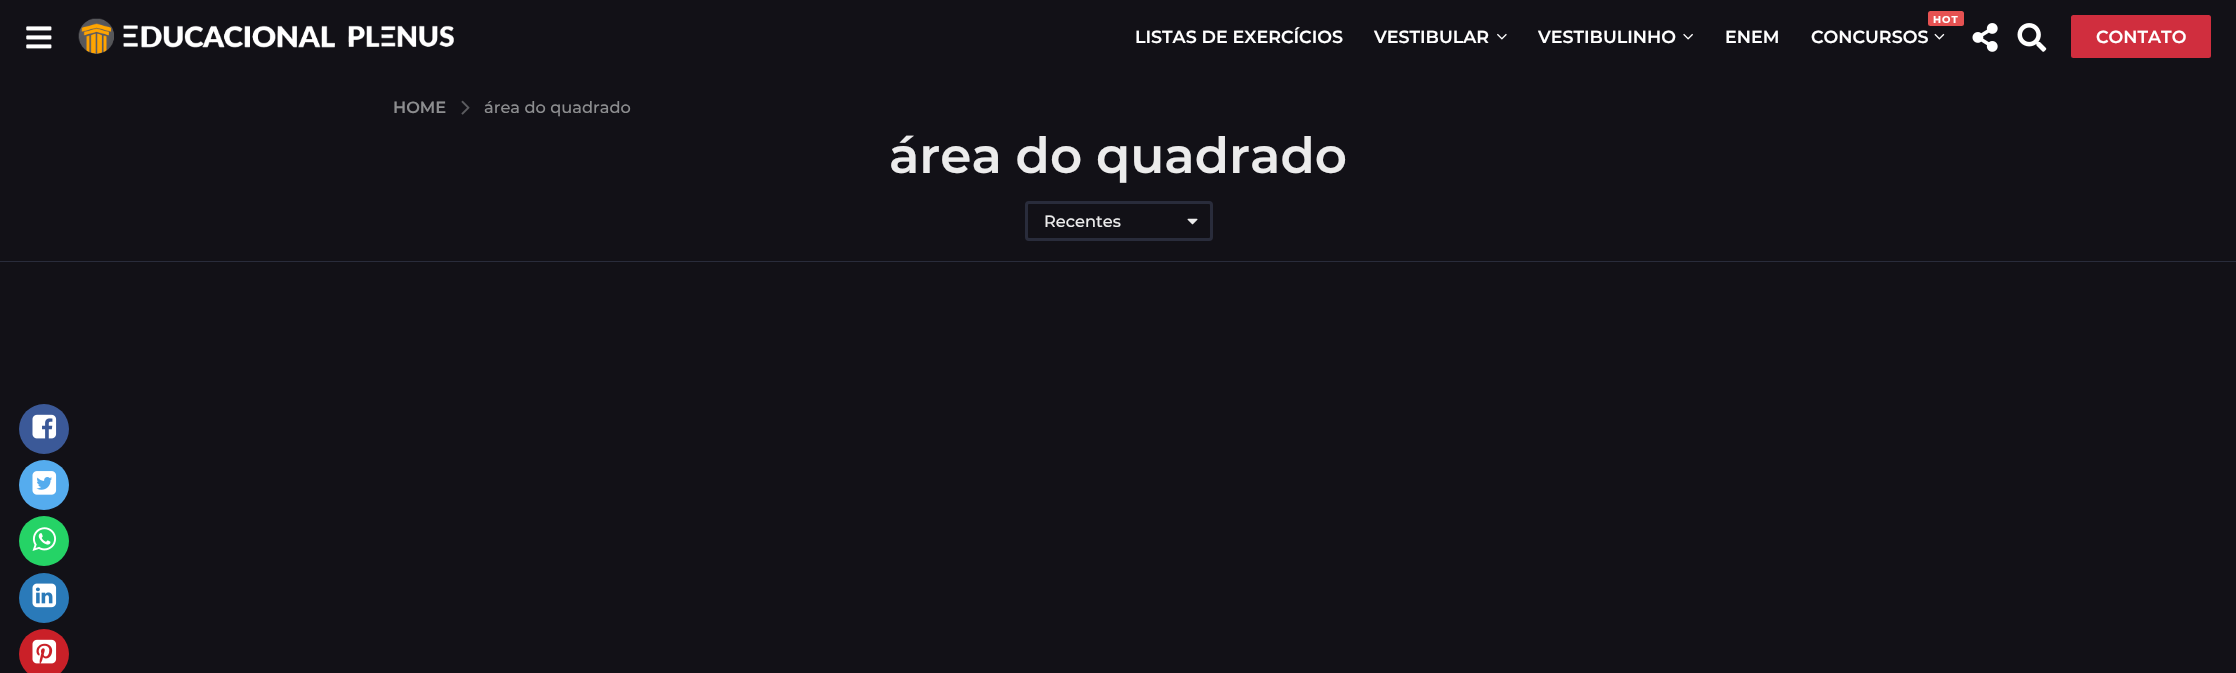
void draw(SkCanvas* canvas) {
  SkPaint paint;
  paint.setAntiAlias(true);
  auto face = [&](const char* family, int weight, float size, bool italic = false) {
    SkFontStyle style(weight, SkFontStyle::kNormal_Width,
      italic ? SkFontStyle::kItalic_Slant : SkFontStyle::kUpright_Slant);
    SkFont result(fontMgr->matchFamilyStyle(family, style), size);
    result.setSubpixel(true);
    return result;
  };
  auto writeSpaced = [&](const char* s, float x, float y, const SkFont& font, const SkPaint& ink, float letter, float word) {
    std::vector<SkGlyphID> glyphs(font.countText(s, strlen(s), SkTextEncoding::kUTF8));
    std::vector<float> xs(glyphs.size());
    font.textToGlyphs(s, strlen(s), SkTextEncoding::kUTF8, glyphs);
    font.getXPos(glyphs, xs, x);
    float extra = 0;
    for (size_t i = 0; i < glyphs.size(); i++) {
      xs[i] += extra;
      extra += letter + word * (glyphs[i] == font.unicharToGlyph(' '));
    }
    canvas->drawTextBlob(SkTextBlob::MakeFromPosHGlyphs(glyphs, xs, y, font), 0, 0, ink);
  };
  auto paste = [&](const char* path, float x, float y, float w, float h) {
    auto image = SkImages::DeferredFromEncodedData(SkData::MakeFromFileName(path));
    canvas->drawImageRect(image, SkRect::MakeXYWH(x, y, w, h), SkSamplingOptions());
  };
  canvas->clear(0xff121117);
  paste("img/1.png", 26, 26, 26, 23);
  paste("img/2.png", 78, 18, 376, 36);
  paste("img/3.png", 1497, 33, 10, 7);
  paste("img/4.png", 1683, 33, 10, 7);
  paint.setColor(0xffe65252);
  canvas->drawRoundRect(SkRect::MakeXYWH(1928, 11, 36, 15), 2.5f, 2.5f, paint);
  paste("img/5.png", 1934, 33, 11, 7);
  paste("img/6.png", 1972, 23, 26, 29);
  paste("img/7.png", 2017, 23, 30, 29);
  paint.setColor(0xffd02e3e);
  canvas->drawRoundRect(SkRect::MakeXYWH(2071, 15, 140, 43), 2.5f, 2.5f, paint);
  paint.setColor(0xff292c3b);
  canvas->drawRect(SkRect::MakeXYWH(0, 261, 2236, 1), paint);
  paste("img/8.png", 461, 100, 9, 15);
  paint.setStroke(true);
  paint.setStrokeWidth(3);
  canvas->drawRoundRect(SkRect::MakeXYWH(1026.5f, 202.5f, 185, 37), 2.5f, 2.5f, paint);
  paste("img/9.png", 1187, 218, 11, 7);
  paint.setStroke(false);
  paint.setColor(0xff3b5998);
  canvas->drawCircle(44, 429, 25, paint);
  paste("img/10.png", 32, 414, 25, 25);
  paint.setColor(0xff55acee);
  canvas->drawCircle(44, 485, 25, paint);
  paste("img/11.png", 32, 471, 25, 24);
  paint.setColor(0xff25d366);
  canvas->drawCircle(44, 541, 25, paint);
  paste("img/12.png", 32, 527, 25, 24);
  paint.setColor(0xff2a7ab9);
  canvas->drawCircle(44, 598, 25, paint);
  paste("img/13.png", 32, 583, 25, 25);
  paint.setColor(0xffca2028);
  canvas->drawCircle(44, 654, 25, paint);
  paste("img/14.png", 32, 639, 25, 25);
  auto f0 = face("Montserrat", 600, 17.5f);
  paint.setColor(0xffffffff);
  {
    const struct { const char* s; float x, y; } items[] = {
      {"LISTAS DE EXERCÍCIOS", 1135, 43},
      {"VESTIBULAR", 1374, 43},
      {"VESTIBULINHO", 1538, 43},
      {"ENEM", 1725, 43},
    };
    for (auto [s, x, y] : items) {
      canvas->drawString(s, x, y, f0, paint);
    }
  }
  auto f1 = face("Montserrat", 700, 10);
  writeSpaced("HOT", 1933, 23, f1, paint, 1, 0);
  canvas->drawString("CONCURSOS", 1811, 43, f0, paint);
  canvas->drawString("CONTATO", 2096, 43, f0, paint);
  auto f2 = face("Montserrat", 600, 16.25f);
  paint.setColor(0xff8c8d8f);
  canvas->drawString("HOME", 393, 113, f2, paint);
  auto f3 = face("Montserrat", 500, 16.25f);
  canvas->drawString("área do quadrado", 484, 113, f3, paint);
  auto f4 = face("Montserrat", 600, 50);
  paint.setColor(0xffececec);
  canvas->drawString("área do quadrado", 889, 173, f4, paint);
  canvas->drawString("Recentes", 1044, 227, f3, paint);
}
